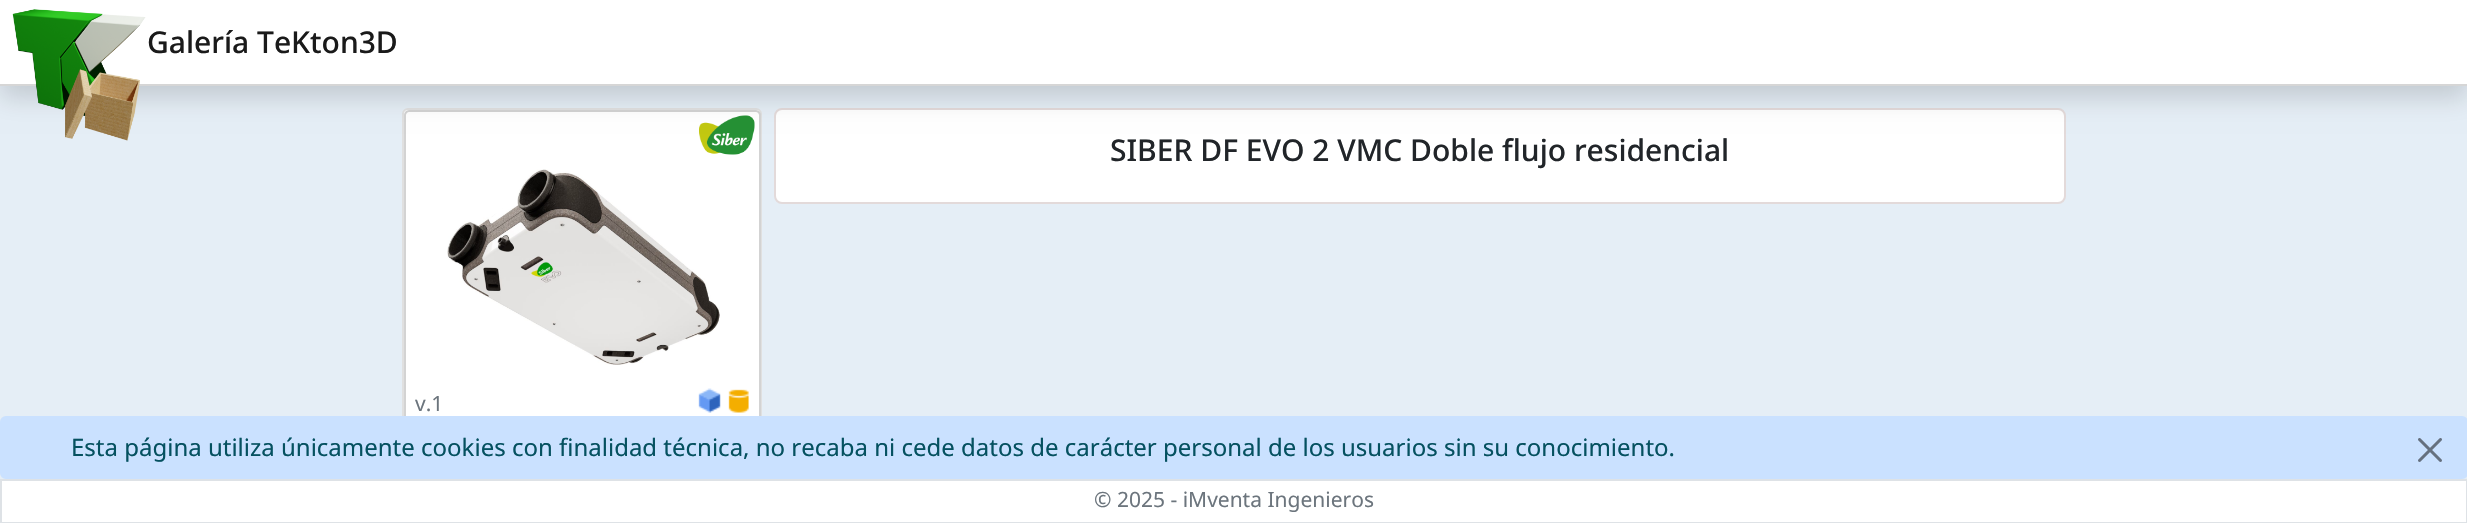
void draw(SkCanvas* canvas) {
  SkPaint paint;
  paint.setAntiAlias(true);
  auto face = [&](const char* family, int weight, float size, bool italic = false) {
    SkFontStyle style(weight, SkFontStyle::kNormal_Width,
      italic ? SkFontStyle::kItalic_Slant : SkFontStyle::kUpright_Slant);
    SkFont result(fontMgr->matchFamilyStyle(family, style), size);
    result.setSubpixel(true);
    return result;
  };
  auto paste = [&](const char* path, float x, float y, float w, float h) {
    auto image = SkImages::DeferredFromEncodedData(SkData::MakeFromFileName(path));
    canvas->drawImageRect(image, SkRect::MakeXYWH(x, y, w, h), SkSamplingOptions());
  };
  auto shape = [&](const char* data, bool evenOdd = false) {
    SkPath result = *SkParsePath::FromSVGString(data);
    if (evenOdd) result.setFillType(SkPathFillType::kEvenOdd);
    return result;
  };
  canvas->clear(0xffe5eef6);
  paint.setColor(0xffffffff);
  canvas->drawRoundRect(SkRect::MakeXYWH(775, 109, 1290, 94), 7, 7, paint);
  paint.setStroke(true);
  paint.setStrokeWidth(2);
  paint.setColor(0xffe3dada);
  canvas->drawRoundRect(SkRect::MakeXYWH(775, 109, 1290, 94), 7, 7, paint);
  paint.setStroke(false);
  paint.setColor(0xffffffff);
  canvas->drawRoundRect(SkRect::MakeXYWH(402, 108, 360, 318), 6, 6, paint);
  paint.setStroke(true);
  paint.setColor(0x1f000000);
  canvas->drawRoundRect(SkRect::MakeXYWH(403, 109, 358, 316), 5, 5, paint);
  paint.setStroke(false);
  paint.setColor(0xffffffff);
  canvas->drawPath(shape("M409 111H756C758 111 760 113 760 115V424H405V115C405 113 407 111 409 111Z"), paint);
  paint.setStroke(true);
  paint.setColor(0xffd3d3d3);
  canvas->drawPath(shape("M409 111H756C758 111 760 113 760 115V424H405V115C405 113 407 111 409 111Z"), paint);
  paste("img/3.png", 699, 115, 56, 40);
  paint.setStroke(false);
  paint.setColor(0x26000000);
  paint.setMaskFilter(SkMaskFilter::MakeBlur(kNormal_SkBlurStyle, 12));
  canvas->drawRect(SkRect::MakeXYWH(0, 12, 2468, 86), paint);
  paint.setMaskFilter(nullptr);
  paint.setColor(0xffffffff);
  canvas->drawRect(SkRect::MakeXYWH(0, 0, 2467, 84), paint);
  paint.setColor(0xffd6d6d6);
  canvas->drawRect(SkRect::MakeXYWH(0, 84, 2467, 2), paint);
  paste("img/1.png", 12, 9, 134, 132);
  paste("img/2.png", 447, 169, 273, 196);
  paste("img/4.png", 698, 388, 23, 25);
  paste("img/5.png", 728, 389, 21, 24);
  paint.setColor(0xffcae1ff);
  canvas->drawRoundRect(SkRect::MakeXYWH(1, 417, 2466, 61), 5, 5, paint);
  paint.setStroke(true);
  canvas->drawRoundRect(SkRect::MakeXYWH(1, 417, 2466, 61), 5, 5, paint);
  paste("img/6.png", 2418, 438, 24, 24);
  paint.setStroke(false);
  paint.setColor(0xffffffff);
  canvas->drawRect(SkRect::MakeXYWH(1, 480, 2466, 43), paint);
  paint.setStroke(true);
  paint.setColor(0xffdee2e6);
  canvas->drawRect(SkRect::MakeXYWH(1, 480, 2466, 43), paint);
  auto f0 = face("Noto Sans", 500, 30);
  paint.setStroke(false);
  paint.setColor(0xff1a1a1a);
  canvas->drawString("Galería TeKton3D", 147, 53, f0, paint);
  paint.setColor(0xff212529);
  canvas->drawString("SIBER DF EVO 2 VMC Doble flujo residencial", 1110, 161, f0, paint);
  auto f1 = face("Noto Sans", 400, 21);
  paint.setColor(0xff6c757d);
  canvas->drawString("v.1", 415, 411, f1, paint);
  auto f2 = face("Noto Sans", 400, 24);
  paint.setColor(0xff055160);
  canvas->drawString("Esta página utiliza únicamente cookies con finalidad técnica, no recaba ni cede datos de carácter personal de los usuarios sin su conocimiento.", 71, 456, f2, paint);
  paint.setColor(0xff6c757d);
  canvas->drawString("© 2025 - iMventa Ingenieros", 1094, 507, f1, paint);
}
